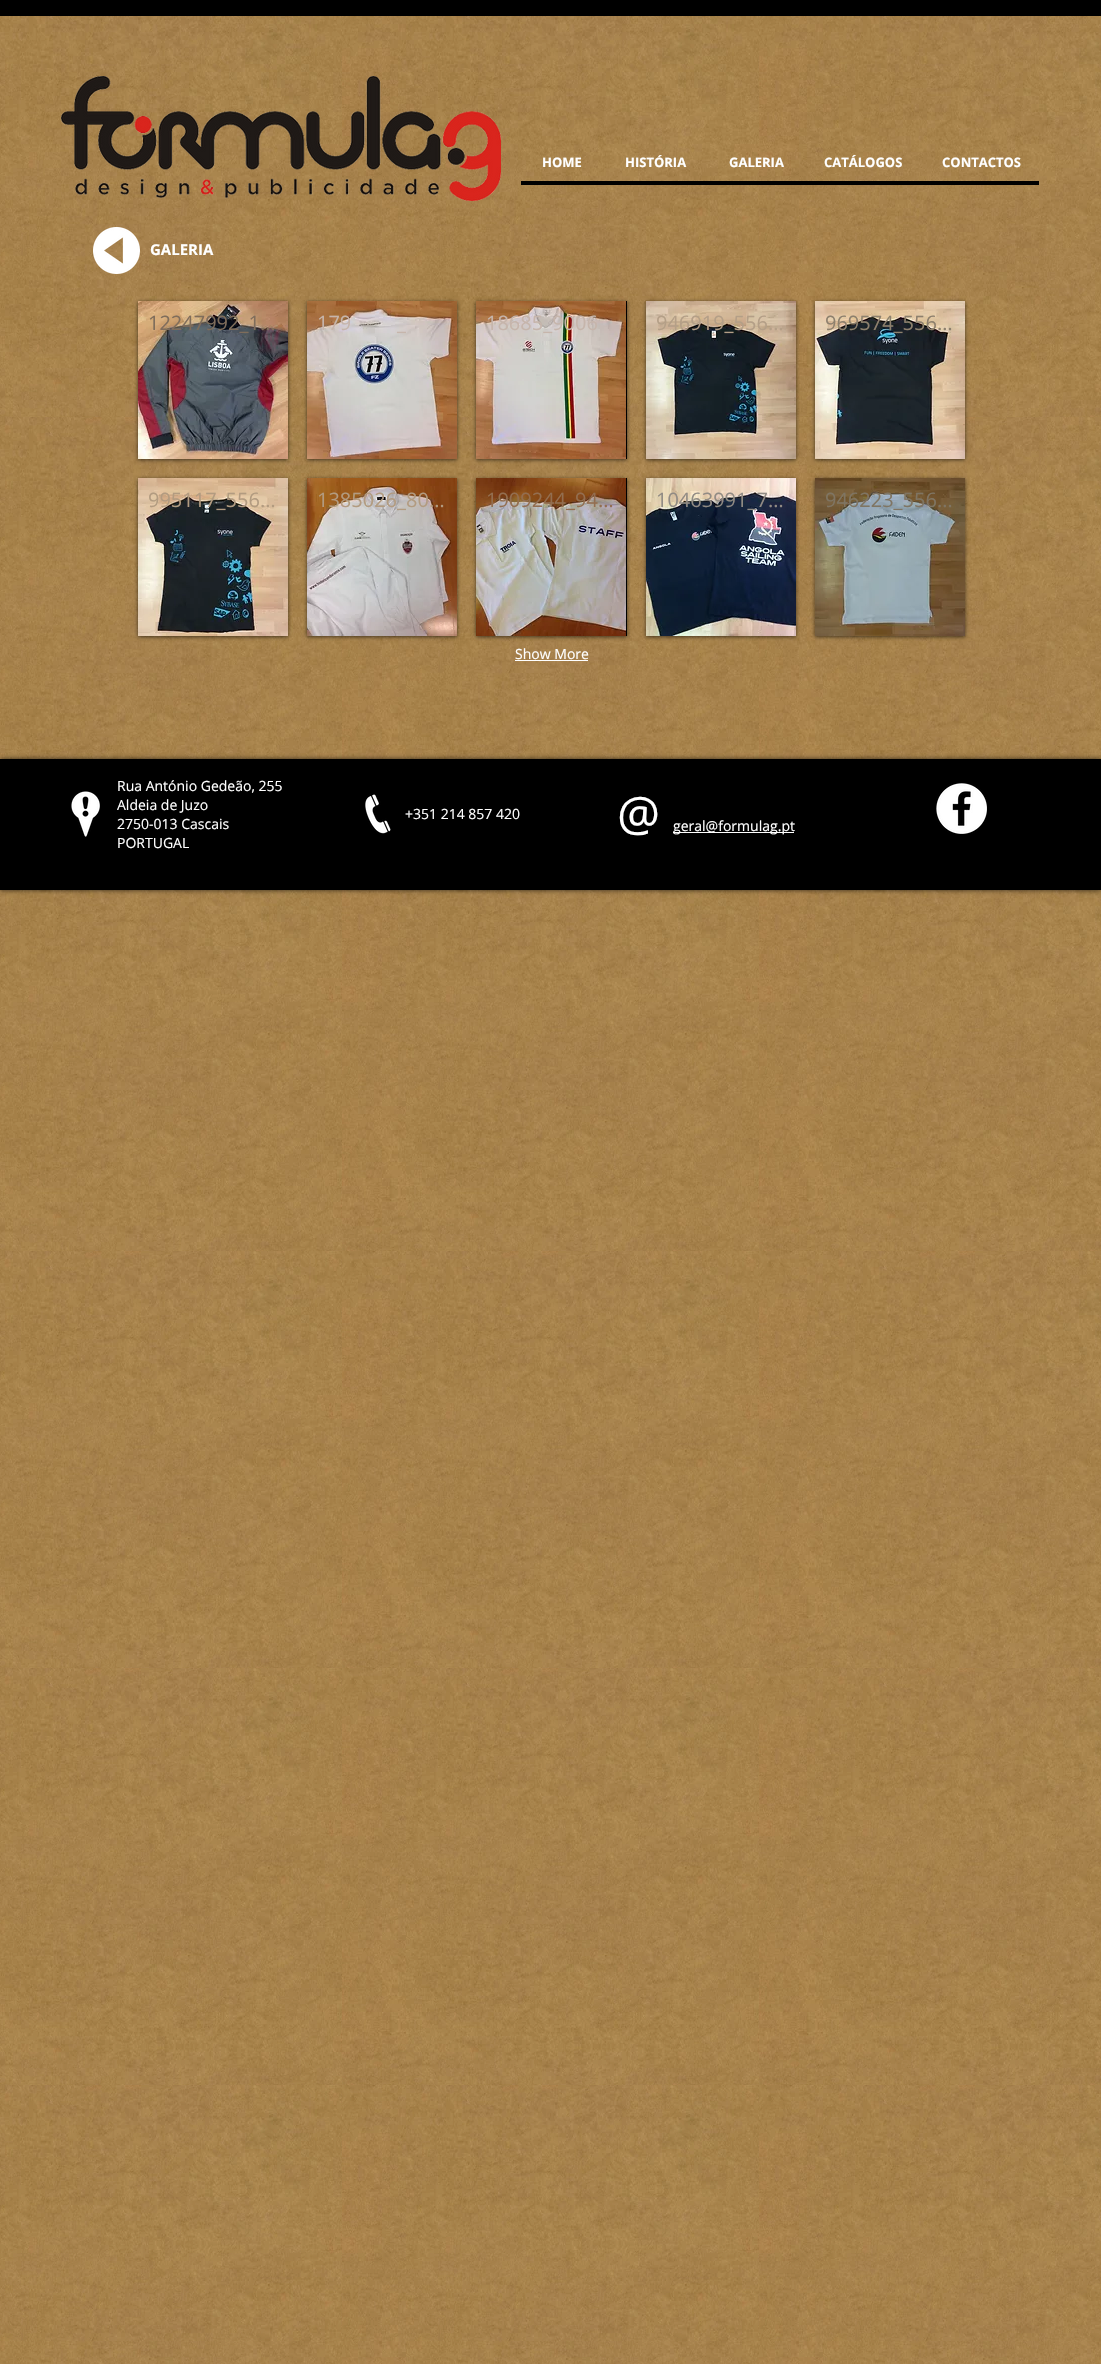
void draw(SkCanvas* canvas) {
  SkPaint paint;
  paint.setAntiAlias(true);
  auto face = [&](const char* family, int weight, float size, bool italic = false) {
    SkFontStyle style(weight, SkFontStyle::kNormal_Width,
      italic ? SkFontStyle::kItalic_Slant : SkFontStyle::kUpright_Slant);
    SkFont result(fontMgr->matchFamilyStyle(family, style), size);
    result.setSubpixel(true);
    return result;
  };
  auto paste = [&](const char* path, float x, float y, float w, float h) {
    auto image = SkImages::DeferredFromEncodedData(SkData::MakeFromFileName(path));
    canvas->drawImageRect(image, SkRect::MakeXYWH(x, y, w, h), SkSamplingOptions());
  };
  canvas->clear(0xffffffff);
  paste("img/1.png", 0, 16, 1101, 2348);
  paint.setColor(0xff000000);
  canvas->drawRect(SkRect::MakeXYWH(0, 0, 1101, 16), paint);
  paste("img/2.png", 61, 76, 440, 125);
  canvas->drawRect(SkRect::MakeXYWH(521, 181, 518, 4), paint);
  paste("img/3.png", 93, 227, 47, 47);
  paint.setColor(0x99000000);
  paint.setMaskFilter(SkMaskFilter::MakeBlur(kNormal_SkBlurStyle, 2));
  canvas->drawRect(SkRect::MakeXYWH(138, 302, 150, 158), paint);
  paint.setMaskFilter(nullptr);
  paste("img/4.png", 138, 301, 150, 158);
  paint.setMaskFilter(SkMaskFilter::MakeBlur(kNormal_SkBlurStyle, 2));
  canvas->drawRect(SkRect::MakeXYWH(307, 302, 150, 158), paint);
  paint.setMaskFilter(nullptr);
  paste("img/5.png", 307, 301, 150, 158);
  paint.setMaskFilter(SkMaskFilter::MakeBlur(kNormal_SkBlurStyle, 2));
  canvas->drawRect(SkRect::MakeXYWH(476, 302, 151, 158), paint);
  paint.setMaskFilter(nullptr);
  paint.setColor(0xff000000);
  canvas->drawRect(SkRect::MakeXYWH(626, 301, 1, 158), paint);
  paste("img/6.png", 476, 301, 150, 158);
  paint.setColor(0x99000000);
  paint.setMaskFilter(SkMaskFilter::MakeBlur(kNormal_SkBlurStyle, 2));
  canvas->drawRect(SkRect::MakeXYWH(646, 302, 150, 158), paint);
  paint.setMaskFilter(nullptr);
  paste("img/7.png", 646, 301, 150, 158);
  paint.setMaskFilter(SkMaskFilter::MakeBlur(kNormal_SkBlurStyle, 2));
  canvas->drawRect(SkRect::MakeXYWH(815, 302, 150, 158), paint);
  paint.setMaskFilter(nullptr);
  paste("img/8.png", 815, 301, 150, 158);
  paint.setMaskFilter(SkMaskFilter::MakeBlur(kNormal_SkBlurStyle, 2));
  canvas->drawRect(SkRect::MakeXYWH(138, 479, 150, 158), paint);
  paint.setMaskFilter(nullptr);
  paste("img/9.png", 138, 478, 150, 158);
  paint.setMaskFilter(SkMaskFilter::MakeBlur(kNormal_SkBlurStyle, 2));
  canvas->drawRect(SkRect::MakeXYWH(307, 479, 150, 158), paint);
  paint.setMaskFilter(nullptr);
  paste("img/10.png", 307, 478, 150, 158);
  paint.setMaskFilter(SkMaskFilter::MakeBlur(kNormal_SkBlurStyle, 2));
  canvas->drawRect(SkRect::MakeXYWH(476, 479, 151, 158), paint);
  paint.setMaskFilter(nullptr);
  paint.setColor(0xff000000);
  canvas->drawRect(SkRect::MakeXYWH(626, 478, 1, 158), paint);
  paste("img/11.png", 476, 478, 150, 158);
  paint.setColor(0x99000000);
  paint.setMaskFilter(SkMaskFilter::MakeBlur(kNormal_SkBlurStyle, 2));
  canvas->drawRect(SkRect::MakeXYWH(646, 479, 150, 158), paint);
  paint.setMaskFilter(nullptr);
  paste("img/12.png", 646, 478, 150, 158);
  paint.setMaskFilter(SkMaskFilter::MakeBlur(kNormal_SkBlurStyle, 2));
  canvas->drawRect(SkRect::MakeXYWH(815, 479, 150, 158), paint);
  paint.setMaskFilter(nullptr);
  paste("img/13.png", 815, 478, 150, 158);
  paint.setColor(0xffffffff);
  canvas->drawRect(SkRect::MakeXYWH(515, 660, 73, 1), paint);
  paint.setColor(0xb3000000);
  paint.setMaskFilter(SkMaskFilter::MakeBlur(kNormal_SkBlurStyle, 2.5f));
  canvas->drawRect(SkRect::MakeXYWH(0, 759, 1101, 131), paint);
  paint.setMaskFilter(nullptr);
  paint.setColor(0xff000000);
  canvas->drawRect(SkRect::MakeXYWH(0, 759, 1101, 131), paint);
  paste("img/14.png", 71, 791, 29, 46);
  paste("img/15.png", 365, 794, 26, 40);
  paste("img/16.png", 936, 783, 51, 51);
  paint.setColor(0xffffffff);
  canvas->drawRect(SkRect::MakeXYWH(673, 832, 121, 1), paint);
  auto f0 = face("Open Sans", 700, 13);
  {
    const struct { const char* s; float x, y; } items[] = {
      {"HOME", 542, 167},
      {"HISTÓRIA", 625, 167},
      {"GALERIA", 729, 167},
      {"CATÁLOGOS", 824, 167},
      {"CONTACTOS", 942, 167},
    };
    for (auto [s, x, y] : items) {
      canvas->drawString(s, x, y, f0, paint);
    }
  }
  auto f1 = face("Open Sans", 700, 15);
  canvas->drawString("GALERIA", 150, 255, f1, paint);
  auto f2 = face("Open Sans", 400, 20);
  paint.setColor(0xff7f6d5b);
  canvas->drawString("12247992_1…", 148, 330, f2, paint);
  paint.setColor(0xffc6b5ab);
  {
    const struct { const char* s; float x, y; } items[] = {
      {"179", 317, 330},
      {"_", 397, 330},
      {"18685_9006", 486, 330},
    };
    for (auto [s, x, y] : items) {
      canvas->drawString(s, x, y, f2, paint);
    }
  }
  paint.setColor(0xffb49f87);
  canvas->drawString("946919_556…", 656, 330, f2, paint);
  paint.setColor(0xff8d806d);
  canvas->drawString("969574_556…", 825, 330, f2, paint);
  paint.setColor(0xffb29b80);
  canvas->drawString("995117_556…", 148, 507, f2, paint);
  canvas->drawString("1385026_80…", 317, 507, f2, paint);
  paint.setColor(0xff936e50);
  canvas->drawString("1909244_94…", 486, 507, f2, paint);
  paint.setColor(0xff918b84);
  canvas->drawString("10463991_7…", 656, 507, f2, paint);
  paint.setColor(0xff7f7563);
  canvas->drawString("946223_556…", 825, 507, f2, paint);
  auto f3 = face("Open Sans", 400, 14);
  paint.setColor(0xffffffff);
  {
    const struct { const char* s; float x, y; } items[] = {
      {"Show More", 515, 659},
      {"Rua António Gedeão, 255", 117, 791},
      {"Aldeia de Juzo", 117, 810},
      {"2750-013 Cascais", 117, 829},
      {"PORTUGAL", 117, 848},
      {"+351 214 857 420", 405, 819},
    };
    for (auto [s, x, y] : items) {
      canvas->drawString(s, x, y, f3, paint);
    }
  }
  auto f4 = face("Open Sans", 400, 48);
  canvas->drawString("@", 617, 831, f4, paint);
  canvas->drawString("geral@formulag.pt", 673, 831, f3, paint);
}
